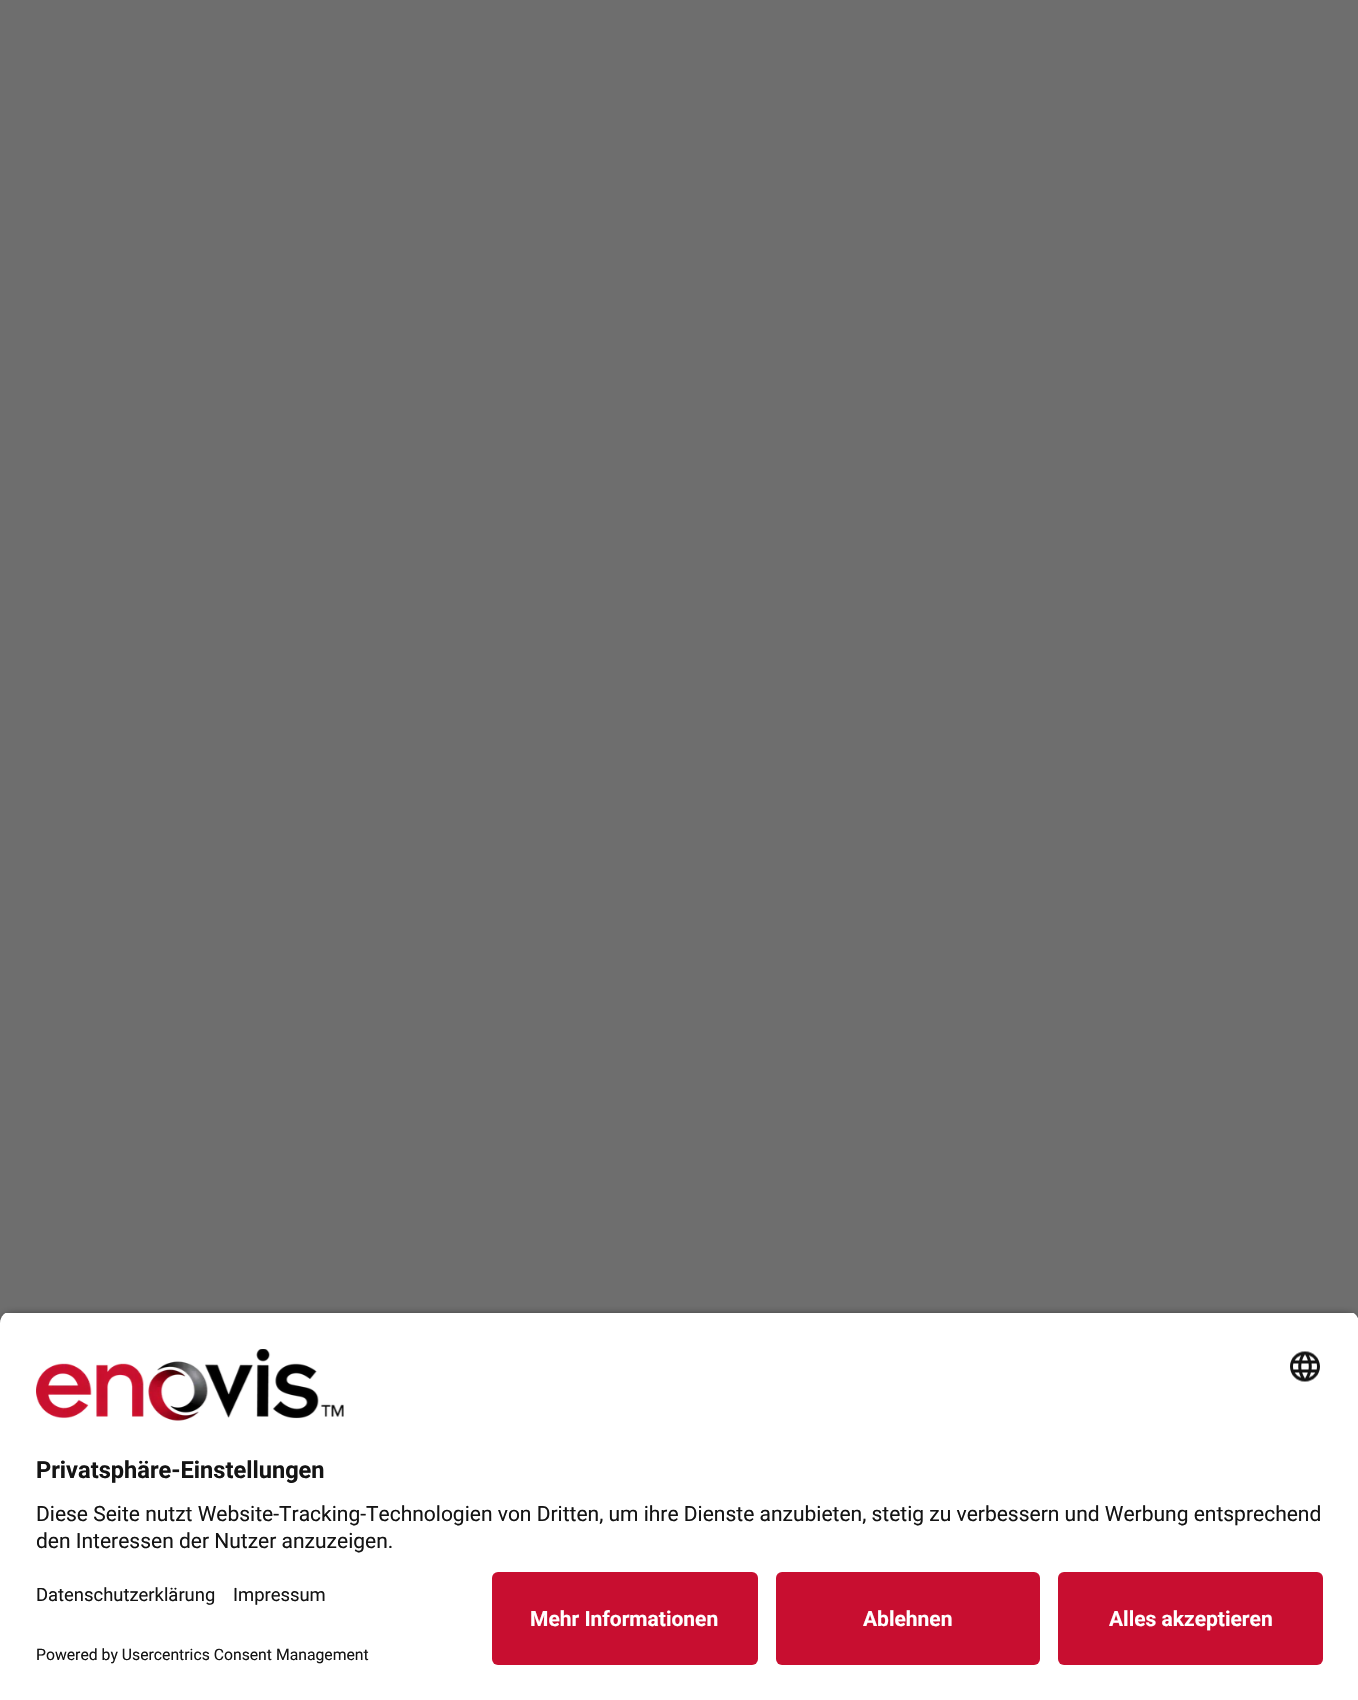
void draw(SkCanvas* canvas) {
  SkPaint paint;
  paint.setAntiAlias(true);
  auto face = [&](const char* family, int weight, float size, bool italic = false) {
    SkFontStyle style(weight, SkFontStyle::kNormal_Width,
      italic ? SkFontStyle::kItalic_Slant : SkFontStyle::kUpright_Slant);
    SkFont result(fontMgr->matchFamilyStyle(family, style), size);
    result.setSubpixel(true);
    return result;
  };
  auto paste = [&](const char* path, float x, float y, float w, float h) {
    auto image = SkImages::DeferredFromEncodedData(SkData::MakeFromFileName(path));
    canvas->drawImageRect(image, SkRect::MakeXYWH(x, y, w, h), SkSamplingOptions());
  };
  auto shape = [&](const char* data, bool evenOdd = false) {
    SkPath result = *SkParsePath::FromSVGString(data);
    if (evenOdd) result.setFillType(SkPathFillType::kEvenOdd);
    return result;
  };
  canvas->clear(0xff6e6e6e);
  paint.setColor(0xcc000000);
  paint.setMaskFilter(SkMaskFilter::MakeBlur(kNormal_SkBlurStyle, 5));
  canvas->drawRoundRect(SkRect::MakeXYWH(0, 1316, 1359, 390), 12, 12, paint);
  paint.setMaskFilter(nullptr);
  canvas->save();
  canvas->clipPath(shape("M12 1311H1347C1353.5 1311 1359 1316.5 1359 1323V1560H0V1323C0 1316.5 5.5 1311 12 1311Z"), true);
  paint.setColor(0xffffffff);
  canvas->drawRect(SkRect::MakeXYWH(0, 1313, 1358, 247), paint);
  canvas->restore();
  paste("img/1.png", 36, 1349, 308, 72);
  paste("img/2.png", 1290, 1351, 30, 31);
  canvas->drawRect(SkRect::MakeXYWH(0, 1560, 1358, 140), paint);
  paint.setColor(0xffc80e30);
  canvas->drawRoundRect(SkRect::MakeXYWH(492, 1572, 266, 93), 6, 6, paint);
  canvas->drawRoundRect(SkRect::MakeXYWH(776, 1572, 264, 93), 6, 6, paint);
  canvas->drawRoundRect(SkRect::MakeXYWH(1058, 1572, 265, 93), 6, 6, paint);
  auto f0 = face("Roboto", 700, 23.6f);
  paint.setColor(0xff141414);
  canvas->drawString("Privatsphäre-Einstellungen", 36, 1478, f0, paint);
  auto f1 = face("Roboto", 400, 21);
  canvas->drawString("Diese Seite nutzt Website-Tracking-Technologien von Dritten, um ihre Dienste anzubieten, stetig zu verbessern und Werbung entsprechend", 36, 1521, f1, paint);
  canvas->drawString("den Interessen der Nutzer anzuzeigen.", 36, 1548, f1, paint);
  auto f2 = face("Roboto", 400, 18.4f);
  canvas->drawString("Datenschutzerklärung", 36, 1601, f2, paint);
  canvas->drawString("Impressum", 233, 1601, f2, paint);
  auto f3 = face("Roboto", 400, 15.75f);
  canvas->drawString("Powered by Usercentrics Consent Management", 36, 1660, f3, paint);
  auto f4 = face("Roboto", 700, 21);
  paint.setColor(0xffffffff);
  {
    const struct { const char* s; float x, y; } items[] = {
      {"Mehr Informationen", 530, 1626},
      {"Ablehnen", 863, 1626},
      {"Alles akzeptieren", 1109, 1626},
    };
    for (auto [s, x, y] : items) {
      canvas->drawString(s, x, y, f4, paint);
    }
  }
}
